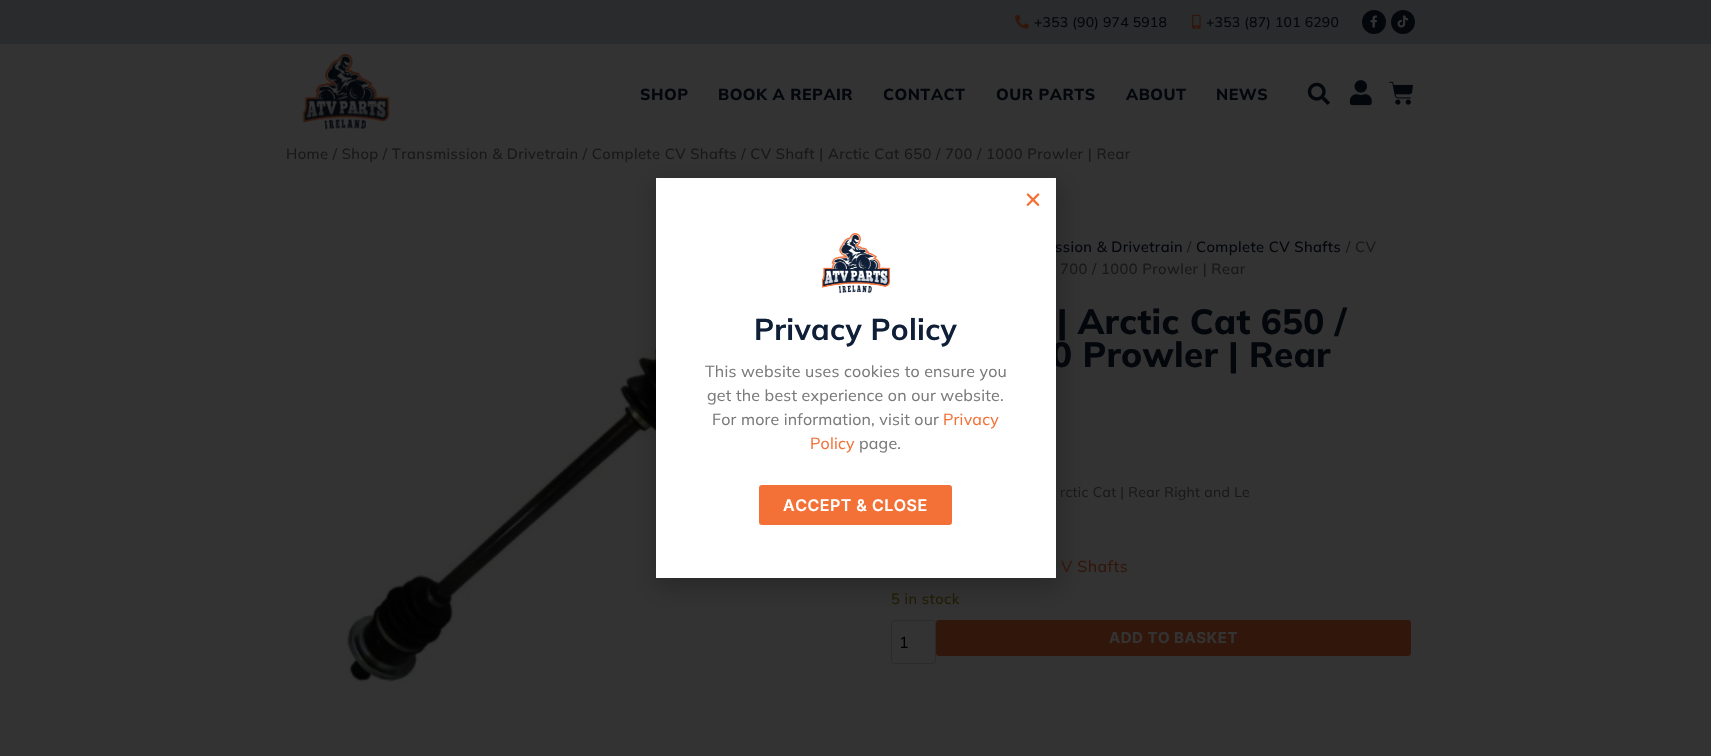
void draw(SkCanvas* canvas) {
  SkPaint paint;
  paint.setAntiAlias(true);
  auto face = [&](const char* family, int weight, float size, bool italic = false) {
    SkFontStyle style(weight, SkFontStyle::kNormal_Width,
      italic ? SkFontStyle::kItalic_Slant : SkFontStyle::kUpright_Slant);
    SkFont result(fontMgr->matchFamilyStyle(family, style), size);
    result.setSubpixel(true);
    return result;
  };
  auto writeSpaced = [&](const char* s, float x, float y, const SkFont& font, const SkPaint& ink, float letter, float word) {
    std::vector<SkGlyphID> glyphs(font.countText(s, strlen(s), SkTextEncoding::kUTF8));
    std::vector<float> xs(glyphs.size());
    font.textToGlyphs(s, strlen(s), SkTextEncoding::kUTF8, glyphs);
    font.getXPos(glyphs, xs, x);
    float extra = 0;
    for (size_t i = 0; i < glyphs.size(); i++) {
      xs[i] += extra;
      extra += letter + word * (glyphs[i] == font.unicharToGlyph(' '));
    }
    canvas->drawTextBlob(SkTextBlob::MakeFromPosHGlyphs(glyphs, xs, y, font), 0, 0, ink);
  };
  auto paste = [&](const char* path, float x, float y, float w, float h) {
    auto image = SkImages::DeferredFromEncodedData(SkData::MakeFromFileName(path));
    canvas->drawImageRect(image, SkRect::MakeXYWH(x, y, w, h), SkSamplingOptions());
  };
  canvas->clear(0xff333333);
  paint.setColor(0xff2a2b2d);
  canvas->drawRect(SkRect::MakeXYWH(0, 0, 1711, 44), paint);
  paste("img/1.png", 1015, 14, 14, 15);
  paste("img/2.png", 1192, 14, 9, 15);
  paint.setColor(0xff03060b);
  canvas->drawCircle(1374, 22, 12, paint);
  paste("img/3.png", 1370, 15, 7, 13);
  canvas->drawCircle(1403, 22, 12, paint);
  paste("img/4.png", 1397, 15, 12, 13);
  paste("img/5.png", 302, 54, 88, 76);
  paste("img/6.png", 1307, 82, 23, 23);
  paste("img/7.png", 1349, 80, 23, 26);
  paste("img/8.png", 1389, 81, 24, 24);
  paste("img/9.png", 343, 284, 465, 401);
  paint.setStroke(true);
  paint.setStrokeWidth(1);
  paint.setColor(0xff2a2b2d);
  canvas->drawRoundRect(SkRect::MakeXYWH(891.5f, 620.5f, 44, 43), 2.5f, 2.5f, paint);
  paint.setStroke(false);
  paint.setColor(0xff31170b);
  canvas->drawRoundRect(SkRect::MakeXYWH(936, 620, 475, 36), 3, 3, paint);
  paint.setColor(0x33000000);
  paint.setMaskFilter(SkMaskFilter::MakeBlur(kNormal_SkBlurStyle, 11.5f));
  canvas->drawRect(SkRect::MakeXYWH(655, 183, 406, 406), paint);
  paint.setMaskFilter(nullptr);
  auto f0 = face("Mulish", 500, 14);
  paint.setColor(0xff03060b);
  writeSpaced("+353 (90) 974 5918", 1034, 27, f0, paint, 0.2f, 0);
  writeSpaced("+353 (87) 101 6290", 1206, 27, f0, paint, 0.2f, 0);
  auto f1 = face("Mulish", 800, 16);
  {
    const struct { const char* s; float x, y; } items[] = {
      {"SHOP", 640, 100},
      {"BOOK A REPAIR", 718, 100},
      {"CONTACT", 883, 100},
      {"OUR PARTS", 996, 100},
      {"ABOUT", 1126, 100},
      {"NEWS", 1216, 100},
    };
    for (auto [s, x, y] : items) {
      writeSpaced(s, x, y, f1, paint, 0.5f, 0);
    }
  }
  auto f2 = face("Mulish", 500, 14.72f);
  paint.setColor(0xff181818);
  writeSpaced("Home / Shop / Transmission & Drivetrain / Complete CV Shafts / CV Shaft | Arctic Cat 650 / 700 / 1000 Prowler | Rear", 286, 159, f2, paint, 0.4f, 0);
  paint.setColor(0xff03060b);
  writeSpaced("ssion & Drivetrain", 1055, 252, f2, paint, 0.4f, 0);
  paint.setColor(0xff181818);
  writeSpaced("/", 1187, 252, f2, paint, 0.4f, 0);
  paint.setColor(0xff03060b);
  writeSpaced("Complete CV Shafts", 1196, 252, f2, paint, 0.4f, 0);
  paint.setColor(0xff181818);
  writeSpaced("/ CV", 1346, 252, f2, paint, 0.4f, 0);
  writeSpaced("700 / 1000 Prowler | Rear", 1060, 274, f2, paint, 0.4f, 0);
  auto f3 = face("Mulish", 800, 35);
  paint.setColor(0xff03060b);
  writeSpaced("| Arctic Cat 650 /", 1057, 334, f3, paint, 0.3f, 0);
  writeSpaced("0 Prowler | Rear", 1051, 367, f3, paint, 0.3f, 0);
  auto f4 = face("Mulish", 400, 14);
  paint.setColor(0xff181818);
  writeSpaced("rctic Cat | Rear Right and Le", 1060, 497, f4, paint, 0.3f, 0);
  auto f5 = face("Mulish", 500, 16);
  paint.setColor(0xff31170b);
  writeSpaced("V Shafts", 1061, 572, f5, paint, 0.4f, 0);
  paint.setColor(0xff1e1c02);
  writeSpaced("5 in stock", 891, 604, f2, paint, 0.4f, 0);
  auto f6 = face("Mulish", 400, 16);
  paint.setColor(0xff000000);
  canvas->drawString("1", 899, 648, f6, paint);
  auto f7 = face("Inter", 700, 15);
  paint.setColor(0xff333333);
  writeSpaced("ADD TO BASKET", 1109, 643, f7, paint, 0.5f, 0);
  paint.setColor(0xffffffff);
  canvas->drawRect(SkRect::MakeXYWH(656, 178, 400, 400), paint);
  paste("img/10.png", 1026, 193, 14, 13);
  paste("img/11.png", 821, 233, 70, 60);
  auto f8 = face("Mulish", 700, 30);
  paint.setColor(0xff101f38);
  writeSpaced("Privacy Policy", 754, 340, f8, paint, 0.3f, 0);
  paint.setColor(0xff7a7a7a);
  {
    const struct { const char* s; float x, y; } items[] = {
      {"This website uses cookies to ensure you", 705, 377},
      {"get the best experience on our website.", 707, 401},
      {"For more information, visit our", 712, 425},
    };
    for (auto [s, x, y] : items) {
      writeSpaced(s, x, y, f6, paint, 0.2f, 0);
    }
  }
  paint.setColor(0xfff37136);
  writeSpaced("Privacy", 943, 425, f6, paint, 0.2f, 0);
  writeSpaced("Policy", 810, 449, f6, paint, 0.2f, 0);
  paint.setColor(0xff7a7a7a);
  writeSpaced("page.", 859, 449, f6, paint, 0.2f, 0);
  paint.setColor(0xfff37136);
  canvas->drawRoundRect(SkRect::MakeXYWH(759, 485, 193, 40), 3, 3, paint);
  auto f9 = face("Inter", 600, 16);
  paint.setColor(0xffffffff);
  writeSpaced("ACCEPT & CLOSE", 783, 511, f9, paint, 0.5f, 0);
}
